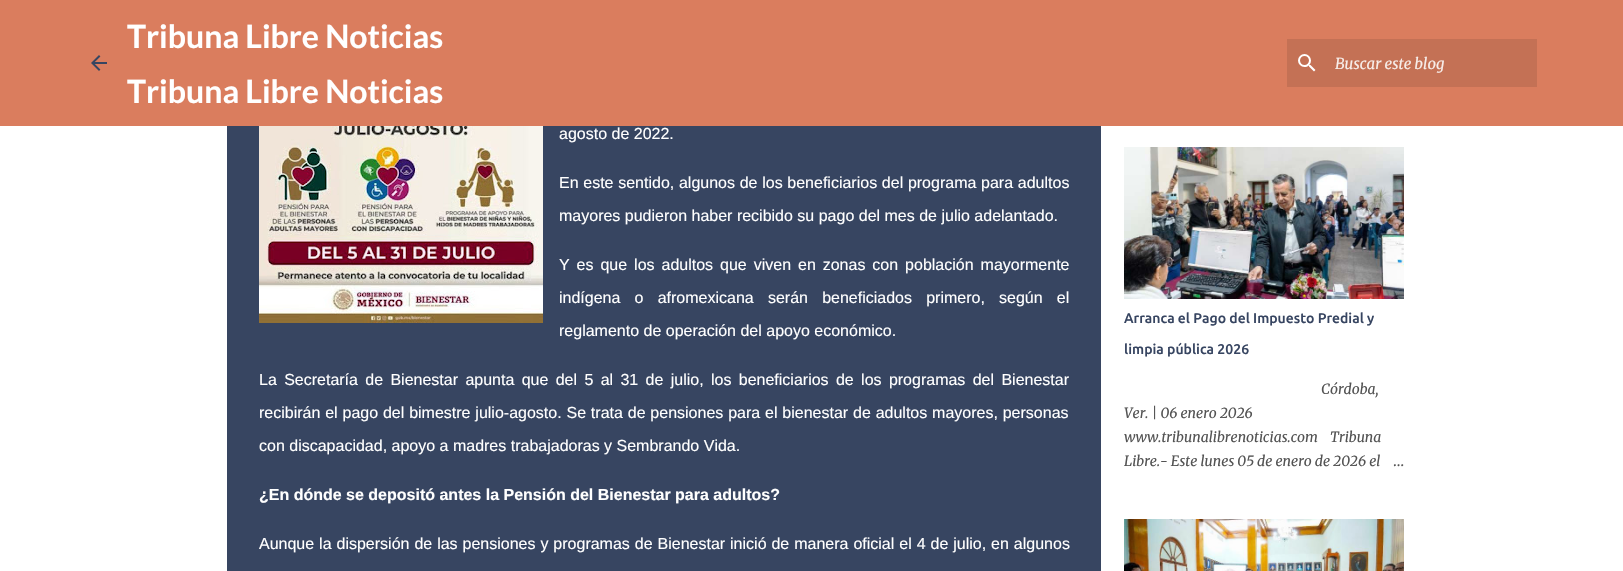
void draw(SkCanvas* canvas) {
  SkPaint paint;
  paint.setAntiAlias(true);
  auto face = [&](const char* family, int weight, float size, bool italic = false) {
    SkFontStyle style(weight, SkFontStyle::kNormal_Width,
      italic ? SkFontStyle::kItalic_Slant : SkFontStyle::kUpright_Slant);
    SkFont result(fontMgr->matchFamilyStyle(family, style), size);
    result.setSubpixel(true);
    return result;
  };
  auto writeSpaced = [&](const char* s, float x, float y, const SkFont& font, const SkPaint& ink, float letter, float word) {
    std::vector<SkGlyphID> glyphs(font.countText(s, strlen(s), SkTextEncoding::kUTF8));
    std::vector<float> xs(glyphs.size());
    font.textToGlyphs(s, strlen(s), SkTextEncoding::kUTF8, glyphs);
    font.getXPos(glyphs, xs, x);
    float extra = 0;
    for (size_t i = 0; i < glyphs.size(); i++) {
      xs[i] += extra;
      extra += letter + word * (glyphs[i] == font.unicharToGlyph(' '));
    }
    canvas->drawTextBlob(SkTextBlob::MakeFromPosHGlyphs(glyphs, xs, y, font), 0, 0, ink);
  };
  auto paste = [&](const char* path, float x, float y, float w, float h) {
    auto image = SkImages::DeferredFromEncodedData(SkData::MakeFromFileName(path));
    canvas->drawImageRect(image, SkRect::MakeXYWH(x, y, w, h), SkSamplingOptions());
  };
  canvas->clear(0xffffffff);
  paint.setColor(0xffda7d5e);
  canvas->drawRect(SkRect::MakeXYWH(0, 0, 1623, 126), paint);
  paste("img/1.png", 91, 55, 16, 16);
  paint.setColor(0xffc47155);
  canvas->drawRect(SkRect::MakeXYWH(1287, 39, 250, 48), paint);
  paste("img/2.png", 1298, 54, 18, 18);
  paint.setColor(0xff374561);
  canvas->drawRect(SkRect::MakeXYWH(227, 126, 874, 445), paint);
  paste("img/3.png", 259, 126, 284, 197);
  paste("img/4.png", 1124, 147, 280, 152);
  paste("img/5.png", 1124, 519, 280, 52);
  canvas->save();
  canvas->clipRect(SkRect::MakeXYWH(127, 16, 316, 39));
  auto f0 = face("Lato", 700, 32);
  paint.setColor(0xffffffff);
  canvas->drawString("Tribuna Libre Noticias", 127, 48, f0, paint);
  canvas->restore();
  canvas->save();
  canvas->clipRect(SkRect::MakeXYWH(127, 71, 316, 39));
  canvas->drawString("Tribuna Libre Noticias", 127, 103, f0, paint);
  canvas->restore();
  auto f1 = face("Merriweather", 400, 15, true);
  paint.setColor(0xfff7ede9);
  canvas->drawString("Buscar este blog", 1335, 69, f1, paint);
  auto f2 = face("Liberation Sans", 400, 16);
  paint.setColor(0xffffffff);
  canvas->drawString("agosto de 2022.", 559, 139, f2, paint);
  writeSpaced("En este sentido, algunos de los beneficiarios del programa para adultos", 559, 188, f2, paint, 0, 0.25f);
  canvas->drawString("mayores pudieron haber recibido su pago del mes de julio adelantado.", 559, 221, f2, paint);
  writeSpaced("Y es que los adultos que viven en zonas con población mayormente", 559, 270, f2, paint, 0, 2.5f);
  writeSpaced("indígena o afromexicana serán beneficiados primero, según el", 559, 303, f2, paint, 0, 9.75f);
  canvas->drawString("reglamento de operación del apoyo económico.", 559, 336, f2, paint);
  writeSpaced("La Secretaría de Bienestar apunta que del 5 al 31 de julio, los beneficiarios de los programas del Bienestar", 259, 385, f2, paint, 0, 2.9f);
  writeSpaced("recibirán el pago del bimestre julio-agosto. Se trata de pensiones para el bienestar de adultos mayores, personas", 259, 418, f2, paint, 0, 0.4f);
  canvas->drawString("con discapacidad, apoyo a madres trabajadoras y Sembrando Vida.", 259, 451, f2, paint);
  auto f3 = face("Liberation Sans", 700, 16);
  canvas->drawString("¿En dónde se depositó antes la Pensión del Bienestar para adultos?", 259, 500, f3, paint);
  writeSpaced("Aunque la dispersión de las pensiones y programas de Bienestar inició de manera oficial el 4 de julio, en algunos", 259, 549, f2, paint, 0, 0.5f);
  auto f4 = face("Ubuntu", 500, 14);
  paint.setColor(0xff374561);
  canvas->drawString("Arranca el Pago del Impuesto Predial y", 1124, 323, f4, paint);
  canvas->drawString("limpia pública 2026", 1124, 354, f4, paint);
  auto f5 = face("Merriweather", 400, 14, true);
  paint.setColor(0xff535353);
  {
    const struct { const char* s; float x, y; } items[] = {
      {"Córdoba,", 1321, 394},
      {"Ver. | 06 enero 2026", 1124, 418},
      {"www.tribunalibrenoticias.com", 1124, 442},
      {"Tribuna", 1330, 442},
      {"Libre.- Este lunes 05 de enero de 2026 el", 1124, 466},
    };
    for (auto [s, x, y] : items) {
      canvas->drawString(s, x, y, f5, paint);
    }
  }
  auto f6 = face("Merriweather", 400, 14);
  canvas->drawString("…", 1393, 466, f6, paint);
}
